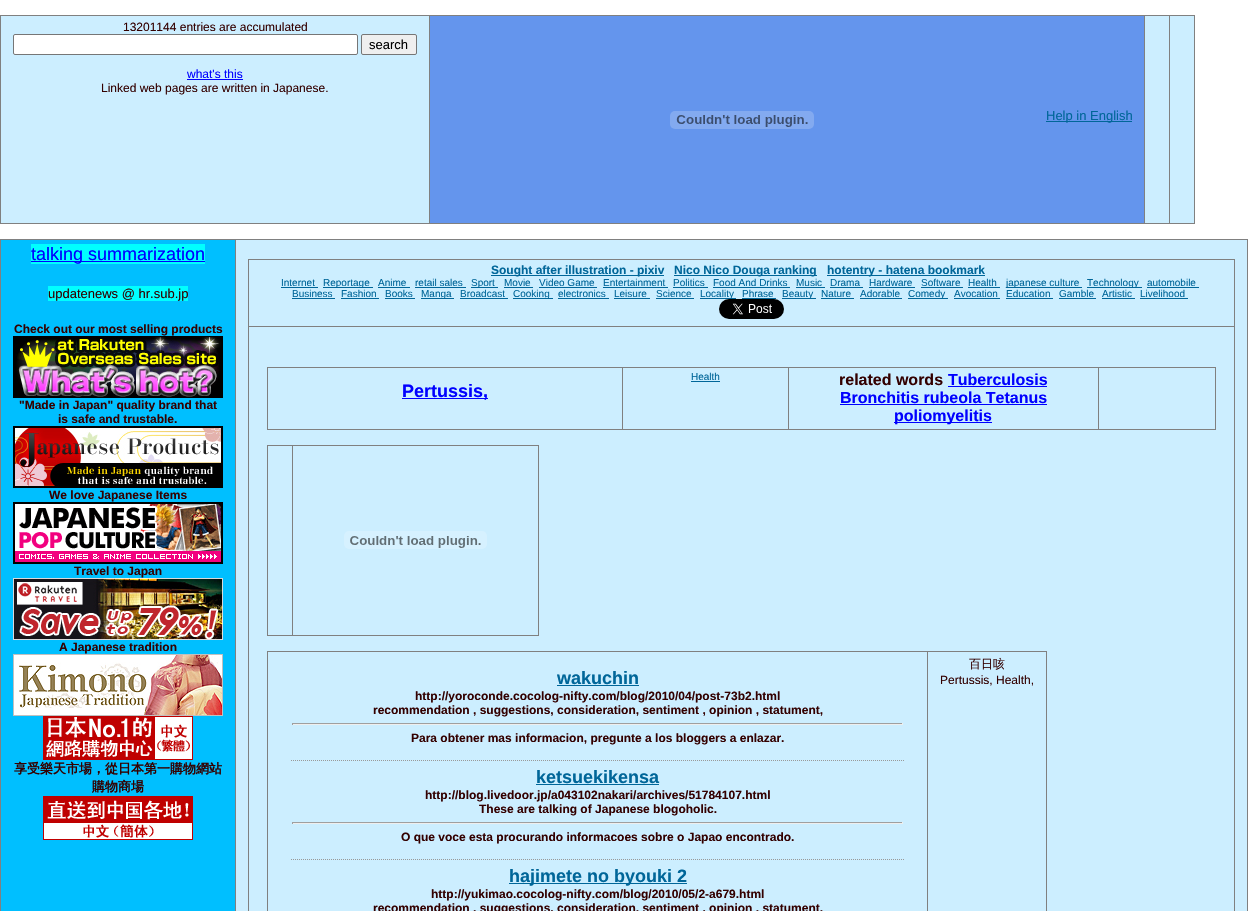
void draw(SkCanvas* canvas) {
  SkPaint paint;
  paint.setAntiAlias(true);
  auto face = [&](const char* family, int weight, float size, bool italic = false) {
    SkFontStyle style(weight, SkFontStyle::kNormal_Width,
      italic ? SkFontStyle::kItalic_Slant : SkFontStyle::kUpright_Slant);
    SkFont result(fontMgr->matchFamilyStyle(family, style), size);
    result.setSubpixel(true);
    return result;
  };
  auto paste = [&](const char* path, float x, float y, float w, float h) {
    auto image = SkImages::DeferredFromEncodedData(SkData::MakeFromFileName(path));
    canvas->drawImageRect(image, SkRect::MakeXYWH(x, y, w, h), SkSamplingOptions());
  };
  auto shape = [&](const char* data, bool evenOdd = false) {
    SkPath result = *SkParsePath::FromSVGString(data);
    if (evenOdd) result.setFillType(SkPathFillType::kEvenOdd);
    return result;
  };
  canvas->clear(0xffffffff);
  {
    const struct { float x, y, w, h; SkColor color; } items[] = {
      {0, 15, 1195, 1, 0xff808080},
      {0, 15, 1, 209, 0xff808080},
      {1, 16, 1193, 207, 0xffcceeff},
      {1194, 15, 1, 209, 0xff808080},
      {0, 223, 1195, 1, 0xff808080},
      {429, 15, 1, 209, 0xff808080},
    };
    for (auto [x, y, w, h, color] : items) {
      paint.setColor(color);
      canvas->drawRect(SkRect::MakeXYWH(x, y, w, h), paint);
    }
  }
  paint.setColor(0xffffffff);
  canvas->drawRoundRect(SkRect::MakeXYWH(13.5f, 34.5f, 344, 20), 1.5f, 1.5f, paint);
  paint.setStroke(true);
  paint.setStrokeWidth(1);
  paint.setColor(0xff767676);
  canvas->drawRoundRect(SkRect::MakeXYWH(13.5f, 34.5f, 344, 20), 1.5f, 1.5f, paint);
  paint.setStroke(false);
  paint.setColor(0xffefefef);
  canvas->drawRoundRect(SkRect::MakeXYWH(361.5f, 34.5f, 55, 20), 1.5f, 1.5f, paint);
  paint.setStroke(true);
  paint.setColor(0xff767676);
  canvas->drawRoundRect(SkRect::MakeXYWH(361.5f, 34.5f, 55, 20), 1.5f, 1.5f, paint);
  paint.setStroke(false);
  {
    const struct { float x, y, w, h; SkColor color; } items[] = {
      {187, 79, 56, 1, 0xff0000ff},
      {1169, 15, 1, 209, 0xff808080},
      {430, 16, 714, 207, 0xff6495ed},
      {1144, 15, 1, 209, 0xff808080},
    };
    for (auto [x, y, w, h, color] : items) {
      paint.setColor(color);
      canvas->drawRect(SkRect::MakeXYWH(x, y, w, h), paint);
    }
  }
  paste("img/1.png", 670, 111, 144, 18);
  {
    const struct { float x, y, w, h; SkColor color; } items[] = {
      {1046, 121, 86, 1, 0xff006699},
      {0, 239, 1248, 1, 0xff808080},
      {0, 239, 1, 672, 0xff808080},
      {236, 240, 1011, 671, 0xffcceeff},
      {1247, 239, 1, 672, 0xff808080},
      {1, 240, 234, 671, 0xff00bfff},
      {235, 239, 1, 672, 0xff808080},
      {31, 244, 174, 20, 0xff00ffff},
      {31, 261, 174, 1, 0xff0000ff},
      {48, 286, 140, 15, 0xff00ffff},
    };
    for (auto [x, y, w, h, color] : items) {
      paint.setColor(color);
      canvas->drawRect(SkRect::MakeXYWH(x, y, w, h), paint);
    }
  }
  paste("img/2.png", 13, 336, 210, 62);
  paste("img/3.png", 13, 426, 210, 62);
  paste("img/4.png", 13, 502, 210, 62);
  paste("img/5.png", 13, 578, 210, 62);
  paste("img/6.png", 13, 654, 210, 62);
  paste("img/7.png", 43, 716, 150, 44);
  paste("img/8.png", 43, 796, 150, 44);
  {
    const struct { float x, y, w, h; SkColor color; } items[] = {
      {248, 259, 987, 1, 0xff808080},
      {248, 259, 1, 652, 0xff808080},
      {1234, 259, 1, 652, 0xff808080},
      {248, 326, 987, 1, 0xff808080},
      {491, 275, 173, 1, 0xff006699},
      {674, 275, 143, 1, 0xff006699},
      {827, 275, 158, 1, 0xff006699},
      {281, 287, 37, 1, 0xff006699},
      {323, 287, 50, 1, 0xff006699},
      {378, 287, 32, 1, 0xff006699},
      {415, 287, 51, 1, 0xff006699},
      {471, 287, 27, 1, 0xff006699},
      {504, 287, 29, 1, 0xff006699},
      {539, 287, 58, 1, 0xff006699},
      {603, 287, 65, 1, 0xff006699},
      {673, 287, 35, 1, 0xff006699},
      {713, 287, 77, 1, 0xff006699},
      {796, 287, 29, 1, 0xff006699},
      {830, 287, 33, 1, 0xff006699},
      {869, 287, 46, 1, 0xff006699},
      {921, 287, 42, 1, 0xff006699},
      {968, 287, 32, 1, 0xff006699},
      {1006, 287, 76, 1, 0xff006699},
      {1087, 287, 55, 1, 0xff006699},
      {1147, 287, 52, 1, 0xff006699},
      {292, 298, 43, 1, 0xff006699},
      {341, 298, 38, 1, 0xff006699},
      {385, 298, 30, 1, 0xff006699},
      {421, 298, 33, 1, 0xff006699},
      {460, 298, 48, 1, 0xff006699},
      {513, 298, 40, 1, 0xff006699},
      {558, 298, 51, 1, 0xff006699},
      {614, 298, 36, 1, 0xff006699},
      {656, 298, 38, 1, 0xff006699},
      {700, 298, 36, 1, 0xff006699},
      {742, 298, 34, 1, 0xff006699},
      {782, 298, 34, 1, 0xff006699},
      {821, 298, 33, 1, 0xff006699},
      {860, 298, 42, 1, 0xff006699},
      {908, 298, 40, 1, 0xff006699},
      {954, 298, 46, 1, 0xff006699},
      {1006, 298, 47, 1, 0xff006699},
      {1059, 298, 37, 1, 0xff006699},
      {1102, 298, 33, 1, 0xff006699},
      {1140, 298, 48, 1, 0xff006699},
      {267, 367, 949, 1, 0xff808080},
      {267, 367, 1, 63, 0xff808080},
      {1215, 367, 1, 63, 0xff808080},
      {267, 429, 949, 1, 0xff808080},
      {622, 367, 1, 63, 0xff808080},
      {402, 398, 86, 1, 0xff0000ff},
      {788, 367, 1, 63, 0xff808080},
      {691, 381, 29, 1, 0xff006699},
      {1098, 367, 1, 63, 0xff808080},
      {948, 386, 99, 1, 0xff0000ff},
      {840, 404, 207, 1, 0xff0000ff},
      {894, 422, 98, 1, 0xff0000ff},
      {267, 445, 272, 1, 0xff808080},
      {267, 445, 1, 191, 0xff808080},
      {538, 445, 1, 191, 0xff808080},
      {267, 635, 272, 1, 0xff808080},
      {292, 445, 1, 191, 0xff808080},
    };
    for (auto [x, y, w, h, color] : items) {
      paint.setColor(color);
      canvas->drawRect(SkRect::MakeXYWH(x, y, w, h), paint);
    }
  }
  paste("img/10.png", 344, 531, 143, 18);
  {
    const struct { float x, y, w, h; SkColor color; } items[] = {
      {267, 651, 780, 1, 0xff808080},
      {267, 651, 1, 260, 0xff808080},
      {1046, 651, 1, 260, 0xff808080},
      {927, 651, 1, 260, 0xff808080},
    };
    for (auto [x, y, w, h, color] : items) {
      paint.setColor(color);
      canvas->drawRect(SkRect::MakeXYWH(x, y, w, h), paint);
    }
  }
  paint.setStroke(true);
  paint.setColor(0xff999999);
  paint.setPathEffect(SkDashPathEffect::Make({{1, 1}}, 0));
  canvas->drawPath(shape("M291 760.5H904"), paint);
  paint.setPathEffect(nullptr);
  paint.setStroke(false);
  {
    const struct { float x, y, w, h; SkColor color; } items[] = {
      {557, 685, 82, 1, 0xff006699},
      {292, 723, 611, 1, 0xff9f9f9f},
      {902, 723, 1, 2, 0xffeeeeee},
      {292, 724, 611, 1, 0xffeeeeee},
      {292, 723, 1, 2, 0xff9f9f9f},
    };
    for (auto [x, y, w, h, color] : items) {
      paint.setColor(color);
      canvas->drawRect(SkRect::MakeXYWH(x, y, w, h), paint);
    }
  }
  paint.setStroke(true);
  paint.setColor(0xff999999);
  paint.setPathEffect(SkDashPathEffect::Make({{1, 1}}, 0));
  canvas->drawPath(shape("M291 859.5H904"), paint);
  paint.setPathEffect(nullptr);
  paint.setStroke(false);
  {
    const struct { float x, y, w, h; SkColor color; } items[] = {
      {536, 784, 123, 1, 0xff006699},
      {292, 822, 611, 1, 0xff9f9f9f},
      {902, 822, 1, 2, 0xffeeeeee},
      {292, 823, 611, 1, 0xffeeeeee},
      {292, 822, 1, 2, 0xff9f9f9f},
      {509, 883, 178, 1, 0xff006699},
    };
    for (auto [x, y, w, h, color] : items) {
      paint.setColor(color);
      canvas->drawRect(SkRect::MakeXYWH(x, y, w, h), paint);
    }
  }
  auto f0 = face("Liberation Sans", 400, 12);
  paint.setColor(0xff330000);
  canvas->drawString("13201144 entries are accumulated", 123, 31, f0, paint);
  auto f1 = face("Liberation Sans", 400, 13);
  paint.setColor(0xff000000);
  canvas->drawString("search", 369, 49, f1, paint);
  paint.setColor(0xff0000ff);
  canvas->drawString("what's this", 187, 78, f0, paint);
  paint.setColor(0xff330000);
  canvas->drawString("Linked web pages are written in Japanese.", 101, 92, f0, paint);
  paint.setColor(0xff006699);
  canvas->drawString("Help in English", 1046, 120, f1, paint);
  auto f2 = face("Liberation Sans", 400, 18);
  paint.setColor(0xff0000ff);
  canvas->drawString("talking summarization", 31, 260, f2, paint);
  paint.setColor(0xff330000);
  canvas->drawString("updatenews @ hr.sub.jp", 48, 298, f1, paint);
  auto f3 = face("Liberation Sans", 700, 12);
  {
    const struct { const char* s; float x, y; } items[] = {
      {"Check out our most selling products", 14, 333},
      {"\"Made in Japan\" quality brand that", 19, 409},
      {"is safe and trustable.", 58, 423},
      {"We love Japanese Items", 49, 499},
      {"Travel to Japan", 74, 575},
      {"A Japanese tradition", 59, 651},
    };
    for (auto [s, x, y] : items) {
      canvas->drawString(s, x, y, f3, paint);
    }
  }
  auto f4 = face("WenQuanYi Zen Hei", 700, 13);
  canvas->drawString("享受樂天市場，從日本第一購物網站", 14, 773, f4, paint);
  canvas->drawString("購物商場", 92, 791, f4, paint);
  paint.setColor(0xff006699);
  {
    const struct { const char* s; float x, y; } items[] = {
      {"Sought after illustration - pixiv", 491, 274},
      {"Nico Nico Douga ranking", 674, 274},
      {"hotentry - hatena bookmark", 827, 274},
    };
    for (auto [s, x, y] : items) {
      canvas->drawString(s, x, y, f3, paint);
    }
  }
  auto f5 = face("Liberation Sans", 400, 10);
  {
    const struct { const char* s; float x, y; } items[] = {
      {"Internet", 281, 286},
      {"Reportage", 323, 286},
      {"Anime", 378, 286},
      {"retail sales", 415, 286},
      {"Sport", 471, 286},
      {"Movie", 504, 286},
      {"Video Game", 539, 286},
      {"Entertainment", 603, 286},
      {"Politics", 673, 286},
      {"Food And Drinks", 713, 286},
      {"Music", 796, 286},
      {"Drama", 830, 286},
      {"Hardware", 869, 286},
      {"Software", 921, 286},
      {"Health", 968, 286},
      {"japanese culture", 1006, 286},
      {"Technology", 1087, 286},
      {"automobile", 1147, 286},
      {"Business", 292, 297},
      {"Fashion", 341, 297},
      {"Books", 385, 297},
      {"Manga", 421, 297},
      {"Broadcast", 460, 297},
      {"Cooking", 513, 297},
      {"electronics", 558, 297},
      {"Leisure", 614, 297},
      {"Science", 656, 297},
      {"Locality", 700, 297},
      {"Phrase", 742, 297},
      {"Beauty", 782, 297},
      {"Nature", 821, 297},
      {"Adorable", 860, 297},
      {"Comedy", 908, 297},
      {"Avocation", 954, 297},
      {"Education", 1006, 297},
      {"Gamble", 1059, 297},
      {"Artistic", 1102, 297},
      {"Livelihood", 1140, 297},
    };
    for (auto [s, x, y] : items) {
      canvas->drawString(s, x, y, f5, paint);
    }
  }
  paste("img/9.png", 719, 299, 65, 20);
  auto f6 = face("Liberation Sans", 700, 18);
  paint.setColor(0xff0000ff);
  canvas->drawString("Pertussis,", 402, 397, f6, paint);
  paint.setColor(0xff006699);
  canvas->drawString("Health", 691, 380, f5, paint);
  auto f7 = face("Liberation Sans", 700, 16);
  paint.setColor(0xff330000);
  canvas->drawString("related words", 839, 385, f7, paint);
  paint.setColor(0xff0000ff);
  {
    const struct { const char* s; float x, y; } items[] = {
      {"Tuberculosis", 948, 385},
      {"Bronchitis rubeola Tetanus", 840, 403},
      {"poliomyelitis", 894, 421},
    };
    for (auto [s, x, y] : items) {
      canvas->drawString(s, x, y, f7, paint);
    }
  }
  paint.setColor(0xff006699);
  canvas->drawString("wakuchin", 557, 684, f6, paint);
  paint.setColor(0xff330000);
  {
    const struct { const char* s; float x, y; } items[] = {
      {"http://yoroconde.cocolog-nifty.com/blog/2010/04/post-73b2.html", 415, 700},
      {"recommendation , suggestions, consideration, sentiment , opinion , statument,", 373, 714},
      {"Para obtener mas informacion, pregunte a los bloggers a enlazar.", 411, 742},
    };
    for (auto [s, x, y] : items) {
      canvas->drawString(s, x, y, f3, paint);
    }
  }
  paint.setColor(0xff006699);
  canvas->drawString("ketsuekikensa", 536, 783, f6, paint);
  paint.setColor(0xff330000);
  {
    const struct { const char* s; float x, y; } items[] = {
      {"http://blog.livedoor.jp/a043102nakari/archives/51784107.html", 425, 799},
      {"These are talking of Japanese blogoholic.", 479, 813},
      {"O que voce esta procurando informacoes sobre o Japao encontrado.", 401, 841},
    };
    for (auto [s, x, y] : items) {
      canvas->drawString(s, x, y, f3, paint);
    }
  }
  paint.setColor(0xff006699);
  canvas->drawString("hajimete no byouki 2", 509, 882, f6, paint);
  paint.setColor(0xff330000);
  canvas->drawString("http://yukimao.cocolog-nifty.com/blog/2010/05/2-a679.html", 431, 898, f3, paint);
  canvas->drawString("recommendation , suggestions, consideration, sentiment , opinion , statument,", 373, 912, f3, paint);
  auto f8 = face("WenQuanYi Zen Hei", 500, 12);
  canvas->drawString("百日咳", 969, 668, f8, paint);
  canvas->drawString("Pertussis, Health,", 940, 684, f0, paint);
}
